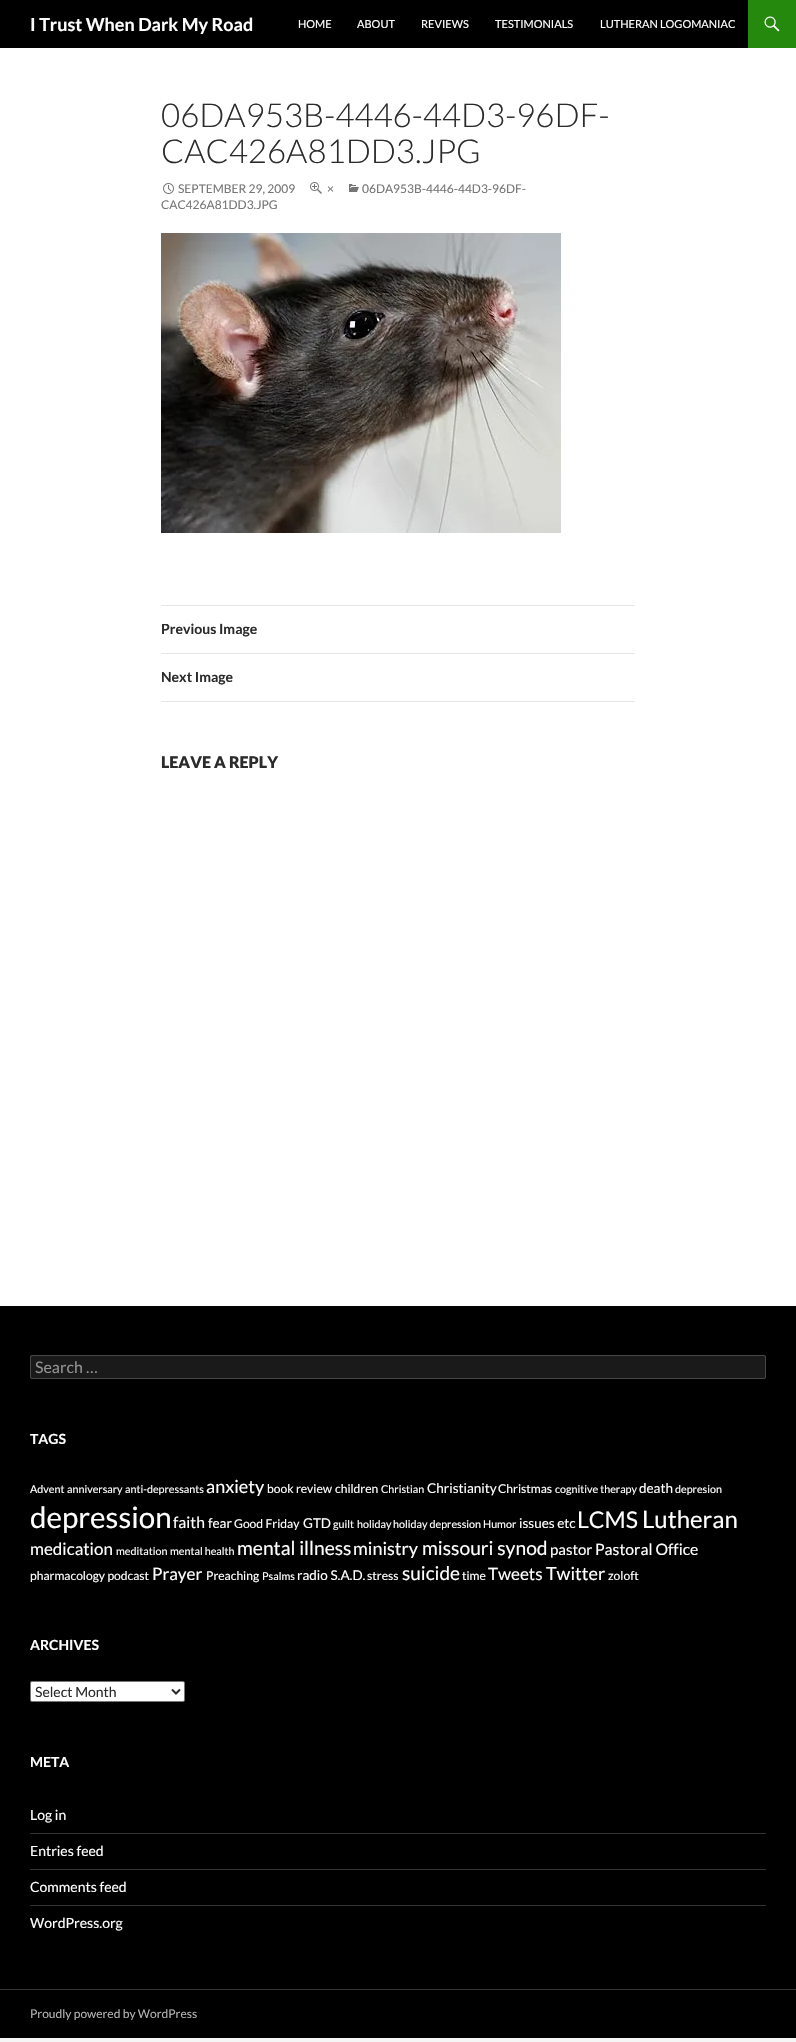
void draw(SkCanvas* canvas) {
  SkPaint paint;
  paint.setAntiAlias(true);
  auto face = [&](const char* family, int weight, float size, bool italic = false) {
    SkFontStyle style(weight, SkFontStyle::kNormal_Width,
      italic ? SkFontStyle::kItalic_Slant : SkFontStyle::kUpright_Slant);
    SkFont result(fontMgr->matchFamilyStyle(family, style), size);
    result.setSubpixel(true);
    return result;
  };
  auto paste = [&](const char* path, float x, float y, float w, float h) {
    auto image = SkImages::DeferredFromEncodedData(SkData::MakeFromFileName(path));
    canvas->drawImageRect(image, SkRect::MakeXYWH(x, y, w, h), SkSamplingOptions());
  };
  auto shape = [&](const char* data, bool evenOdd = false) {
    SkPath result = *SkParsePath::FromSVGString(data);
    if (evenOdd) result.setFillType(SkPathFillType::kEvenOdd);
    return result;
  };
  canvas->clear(0xfff5f5f5);
  {
    const struct { float x, y, w, h; SkColor color; } items[] = {
      {0, 48, 796, 1258, 0xffffffff},
      {0, 0, 748, 48, 0xff000000},
      {748, 0, 48, 48, 0xff24890d},
    };
    for (auto [x, y, w, h, color] : items) {
      paint.setColor(color);
      canvas->drawRect(SkRect::MakeXYWH(x, y, w, h), paint);
    }
  }
  paste("img/1.png", 764, 16, 16, 16);
  paste("img/2.png", 349, 184, 10, 8);
  paste("img/3.png", 163, 183, 11, 11);
  paste("img/4.png", 310, 182, 12, 12);
  paste("img/5.png", 161, 233, 400, 300);
  {
    const struct { float x, y, w, h; SkColor color; } items[] = {
      {161, 605, 474, 1, 0xffe6e6e6},
      {161, 653, 474, 1, 0xffe6e6e6},
      {161, 701, 474, 1, 0xffe6e6e6},
      {0, 1306, 796, 683, 0xff000000},
      {0, 1989, 796, 1, 0xff333333},
    };
    for (auto [x, y, w, h, color] : items) {
      paint.setColor(color);
      canvas->drawRect(SkRect::MakeXYWH(x, y, w, h), paint);
    }
  }
  paint.setColor(0xff1a1a1a);
  canvas->drawRoundRect(SkRect::MakeXYWH(30, 1355, 736, 24), 2, 2, paint);
  paint.setStroke(true);
  paint.setStrokeWidth(1);
  paint.setColor(0x33ffffff);
  canvas->drawRoundRect(SkRect::MakeXYWH(30.5f, 1355.5f, 735, 23), 1.5f, 1.5f, paint);
  paint.setStroke(false);
  paint.setColor(0xffffffff);
  canvas->drawRoundRect(SkRect::MakeXYWH(30.5f, 1681.5f, 154, 20), 1.5f, 1.5f, paint);
  paint.setStroke(true);
  paint.setColor(0xff767676);
  canvas->drawRoundRect(SkRect::MakeXYWH(30.5f, 1681.5f, 154, 20), 1.5f, 1.5f, paint);
  paint.setStrokeWidth(2);
  paint.setColor(0xff2b2b2b);
  canvas->drawPath(shape("M172 1689.5L176 1693.5L180 1689.5"), paint);
  paint.setStroke(false);
  {
    const struct { float x, y, w, h; SkColor color; } items[] = {
      {30, 1833, 736, 1, 0xff333333},
      {30, 1869, 736, 1, 0xff333333},
      {30, 1905, 736, 1, 0xff333333},
      {0, 1990, 796, 48, 0xff000000},
    };
    for (auto [x, y, w, h, color] : items) {
      paint.setColor(color);
      canvas->drawRect(SkRect::MakeXYWH(x, y, w, h), paint);
    }
  }
  auto f0 = face("Lato", 700, 18);
  paint.setColor(0xffffffff);
  canvas->drawString("I Trust When Dark My Road", 30, 31, f0, paint);
  auto f1 = face("Lato", 400, 11);
  {
    const struct { const char* s; float x, y; } items[] = {
      {"HOME", 298, 28},
      {"ABOUT", 357, 28},
      {"REVIEWS", 421, 28},
      {"TESTIMONIALS", 495, 28},
      {"LUTHERAN LOGOMANIAC", 600, 28},
    };
    for (auto [s, x, y] : items) {
      canvas->drawString(s, x, y, f1, paint);
    }
  }
  auto f2 = face("Lato", 300, 33);
  paint.setColor(0xff2b2b2b);
  canvas->drawString("06DA953B-4446-44D3-96DF-", 161, 127, f2, paint);
  canvas->drawString("CAC426A81DD3.JPG", 161, 163, f2, paint);
  auto f3 = face("Lato", 400, 12);
  paint.setColor(0xff767676);
  {
    const struct { const char* s; float x, y; } items[] = {
      {"06DA953B-4446-44D3-96DF-", 362, 193},
      {"CAC426A81DD3.JPG", 161, 209},
      {"SEPTEMBER 29, 2009", 178, 193},
      {"×", 327, 193},
    };
    for (auto [s, x, y] : items) {
      canvas->drawString(s, x, y, f3, paint);
    }
  }
  auto f4 = face("Lato", 700, 14);
  paint.setColor(0xff2b2b2b);
  canvas->drawString("Previous Image", 161, 634, f4, paint);
  canvas->drawString("Next Image", 161, 682, f4, paint);
  auto f5 = face("Lato", 900, 16);
  canvas->drawString("LEAVE A REPLY", 161, 768, f5, paint);
  auto f6 = face("Lato", 400, 16);
  paint.setColor(0xff939393);
  canvas->drawString("Search …", 35, 1373, f6, paint);
  paint.setColor(0xffffffff);
  canvas->drawString("TAGS", 30, 1444, f4, paint);
  auto f7 = face("Lato", 400, 10.75f);
  {
    const struct { const char* s; float x, y; } items[] = {
      {"Advent", 30, 1493},
      {"anniversary", 67, 1493},
      {"anti-depressants", 125, 1493},
    };
    for (auto [s, x, y] : items) {
      canvas->drawString(s, x, y, f7, paint);
    }
  }
  auto f8 = face("Lato", 400, 18);
  canvas->drawString("anxiety", 206, 1493, f8, paint);
  auto f9 = face("Lato", 400, 12.1f);
  canvas->drawString("book review", 267, 1493, f9, paint);
  canvas->drawString("children", 335, 1493, f9, paint);
  canvas->drawString("Christian", 381, 1493, f7, paint);
  auto f10 = face("Lato", 400, 13.5f);
  canvas->drawString("Christianity", 427, 1493, f10, paint);
  canvas->drawString("Christmas", 498, 1493, f9, paint);
  canvas->drawString("cognitive therapy", 555, 1493, f7, paint);
  canvas->drawString("death", 639, 1493, f10, paint);
  canvas->drawString("depresion", 675, 1493, f7, paint);
  auto f11 = face("Lato", 400, 29.5f);
  canvas->drawString("depression", 30, 1528, f11, paint);
  auto f12 = face("Lato", 400, 15.75f);
  canvas->drawString("faith", 173, 1528, f12, paint);
  canvas->drawString("fear", 208, 1528, f10, paint);
  canvas->drawString("Good Friday", 234, 1528, f9, paint);
  canvas->drawString("GTD", 303, 1528, f10, paint);
  {
    const struct { const char* s; float x, y; } items[] = {
      {"guilt", 333, 1528},
      {"holiday", 357, 1528},
      {"holiday depression", 393, 1528},
      {"Humor", 483, 1528},
    };
    for (auto [s, x, y] : items) {
      canvas->drawString(s, x, y, f7, paint);
    }
  }
  canvas->drawString("issues etc", 519, 1528, f10, paint);
  auto f13 = face("Lato", 400, 23);
  canvas->drawString("LCMS", 577, 1528, f13, paint);
  auto f14 = face("Lato", 400, 24);
  canvas->drawString("Lutheran", 642, 1528, f14, paint);
  auto f15 = face("Lato", 400, 17);
  canvas->drawString("medication", 30, 1555, f15, paint);
  canvas->drawString("meditation", 116, 1555, f7, paint);
  canvas->drawString("mental health", 170, 1555, f7, paint);
  auto f16 = face("Lato", 400, 19.25f);
  canvas->drawString("mental illness", 237, 1555, f16, paint);
  canvas->drawString("ministry", 353, 1555, f8, paint);
  canvas->drawString("missouri synod", 422, 1555, f16, paint);
  auto f17 = face("Lato", 400, 15);
  canvas->drawString("pastor", 550, 1555, f17, paint);
  canvas->drawString("Pastoral Office", 595, 1555, f12, paint);
  canvas->drawString("pharmacology podcast", 30, 1580, f9, paint);
  canvas->drawString("Prayer", 152, 1580, f15, paint);
  canvas->drawString("Preaching", 206, 1580, f9, paint);
  canvas->drawString("Psalms", 262, 1580, f7, paint);
  canvas->drawString("radio S.A.D.", 297, 1580, f10, paint);
  canvas->drawString("stress", 367, 1580, f9, paint);
  auto f18 = face("Lato", 400, 19);
  canvas->drawString("suicide", 402, 1580, f18, paint);
  canvas->drawString("time", 462, 1580, f9, paint);
  canvas->drawString("Tweets", 488, 1580, f15, paint);
  canvas->drawString("Twitter", 546, 1580, f8, paint);
  canvas->drawString("zoloft", 608, 1580, f9, paint);
  canvas->drawString("ARCHIVES", 30, 1650, f4, paint);
  auto f19 = face("Lato", 400, 14);
  paint.setColor(0xff2b2b2b);
  canvas->drawString("Select Month", 35, 1697, f19, paint);
  paint.setColor(0xffffffff);
  canvas->drawString("META", 30, 1767, f4, paint);
  {
    const struct { const char* s; float x, y; } items[] = {
      {"Log in", 30, 1820},
      {"Entries feed", 30, 1856},
      {"Comments feed", 30, 1892},
      {"WordPress.org", 30, 1928},
    };
    for (auto [s, x, y] : items) {
      canvas->drawString(s, x, y, f19, paint);
    }
  }
  paint.setColor(0xffb3b3b3);
  canvas->drawString("Proudly powered by WordPress", 30, 2018, f3, paint);
}
